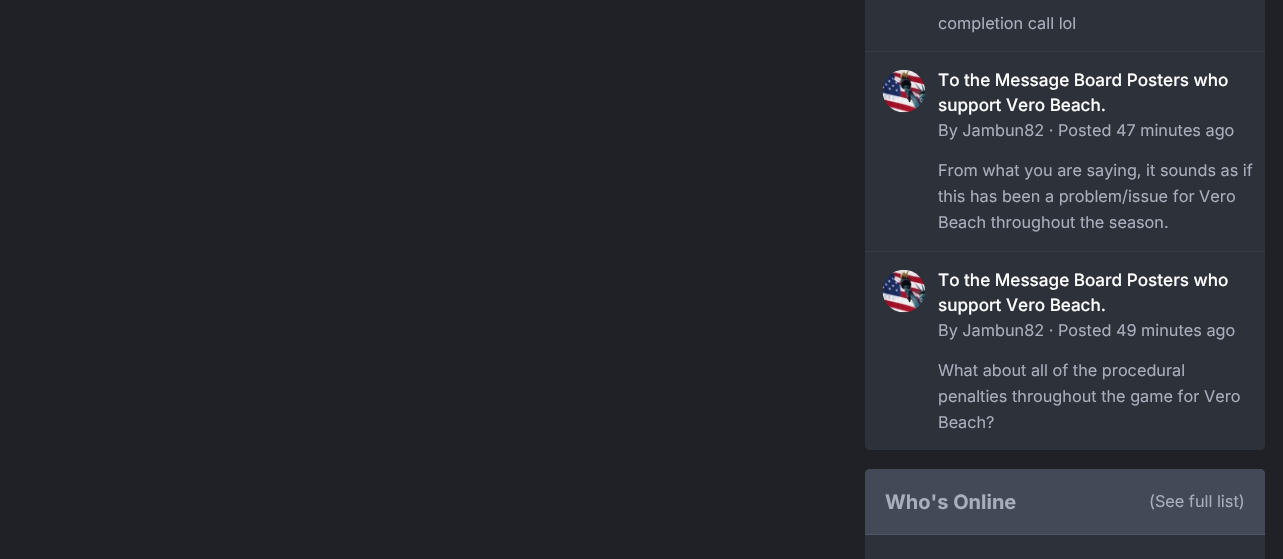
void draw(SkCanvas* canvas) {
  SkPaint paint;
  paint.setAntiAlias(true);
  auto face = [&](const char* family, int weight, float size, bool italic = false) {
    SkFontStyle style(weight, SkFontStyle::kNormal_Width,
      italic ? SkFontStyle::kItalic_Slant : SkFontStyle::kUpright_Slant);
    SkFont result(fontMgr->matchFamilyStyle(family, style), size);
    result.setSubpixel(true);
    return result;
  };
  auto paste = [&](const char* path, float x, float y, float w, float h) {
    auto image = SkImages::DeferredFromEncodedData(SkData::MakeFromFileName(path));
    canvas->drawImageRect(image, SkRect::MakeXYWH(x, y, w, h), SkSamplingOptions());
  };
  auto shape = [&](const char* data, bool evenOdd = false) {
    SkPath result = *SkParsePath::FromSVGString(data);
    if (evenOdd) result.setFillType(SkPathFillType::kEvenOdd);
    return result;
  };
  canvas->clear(0xff1f2126);
  paint.setColor(0xff2d3139);
  canvas->drawRoundRect(SkRect::MakeXYWH(865, -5, 400, 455), 5, 5, paint);
  paint.setColor(0xff393e46);
  canvas->drawRect(SkRect::MakeXYWH(865, 51, 400, 1), paint);
  canvas->drawRect(SkRect::MakeXYWH(865, 251, 400, 1), paint);
  paste("img/1.png", 882, 69, 43, 44);
  paste("img/2.png", 882, 269, 43, 44);
  paint.setColor(0xff2d3139);
  canvas->drawRoundRect(SkRect::MakeXYWH(865, 469, 400, 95), 5, 5, paint);
  paint.setColor(0xff434956);
  canvas->drawPath(shape("M870 469H1260C1263 469 1265 471 1265 474V535H865V474C865 471 867 469 870 469Z"), paint);
  paint.setColor(0xff525865);
  canvas->drawRect(SkRect::MakeXYWH(865, 534, 400, 1), paint);
  auto f0 = face("Inter", 400, 16.25f);
  paint.setColor(0xffa9aebd);
  canvas->drawString("completion call lol", 938, 29, f0, paint);
  auto f1 = face("Inter", 500, 17.1f);
  paint.setColor(0xffffffff);
  canvas->drawString("To the Message Board Posters who", 938, 86, f1, paint);
  canvas->drawString("support Vero Beach.", 938, 111, f1, paint);
  paint.setColor(0xffa9aebd);
  {
    const struct { const char* s; float x, y; } items[] = {
      {"By Jambun82 · Posted 47 minutes ago", 938, 136},
      {"From what you are saying, it sounds as if", 938, 176},
      {"this has been a problem/issue for Vero", 938, 202},
      {"Beach throughout the season.", 938, 228},
    };
    for (auto [s, x, y] : items) {
      canvas->drawString(s, x, y, f0, paint);
    }
  }
  paint.setColor(0xffffffff);
  canvas->drawString("To the Message Board Posters who", 938, 286, f1, paint);
  canvas->drawString("support Vero Beach.", 938, 311, f1, paint);
  paint.setColor(0xffa9aebd);
  {
    const struct { const char* s; float x, y; } items[] = {
      {"By Jambun82 · Posted 49 minutes ago", 938, 336},
      {"What about all of the procedural", 938, 376},
      {"penalties throughout the game for Vero", 938, 402},
      {"Beach?", 938, 428},
    };
    for (auto [s, x, y] : items) {
      canvas->drawString(s, x, y, f0, paint);
    }
  }
  auto f2 = face("Inter", 700, 20);
  canvas->drawString("Who's Online", 885, 509, f2, paint);
  canvas->drawString("(See full list)", 1149, 507, f0, paint);
}
